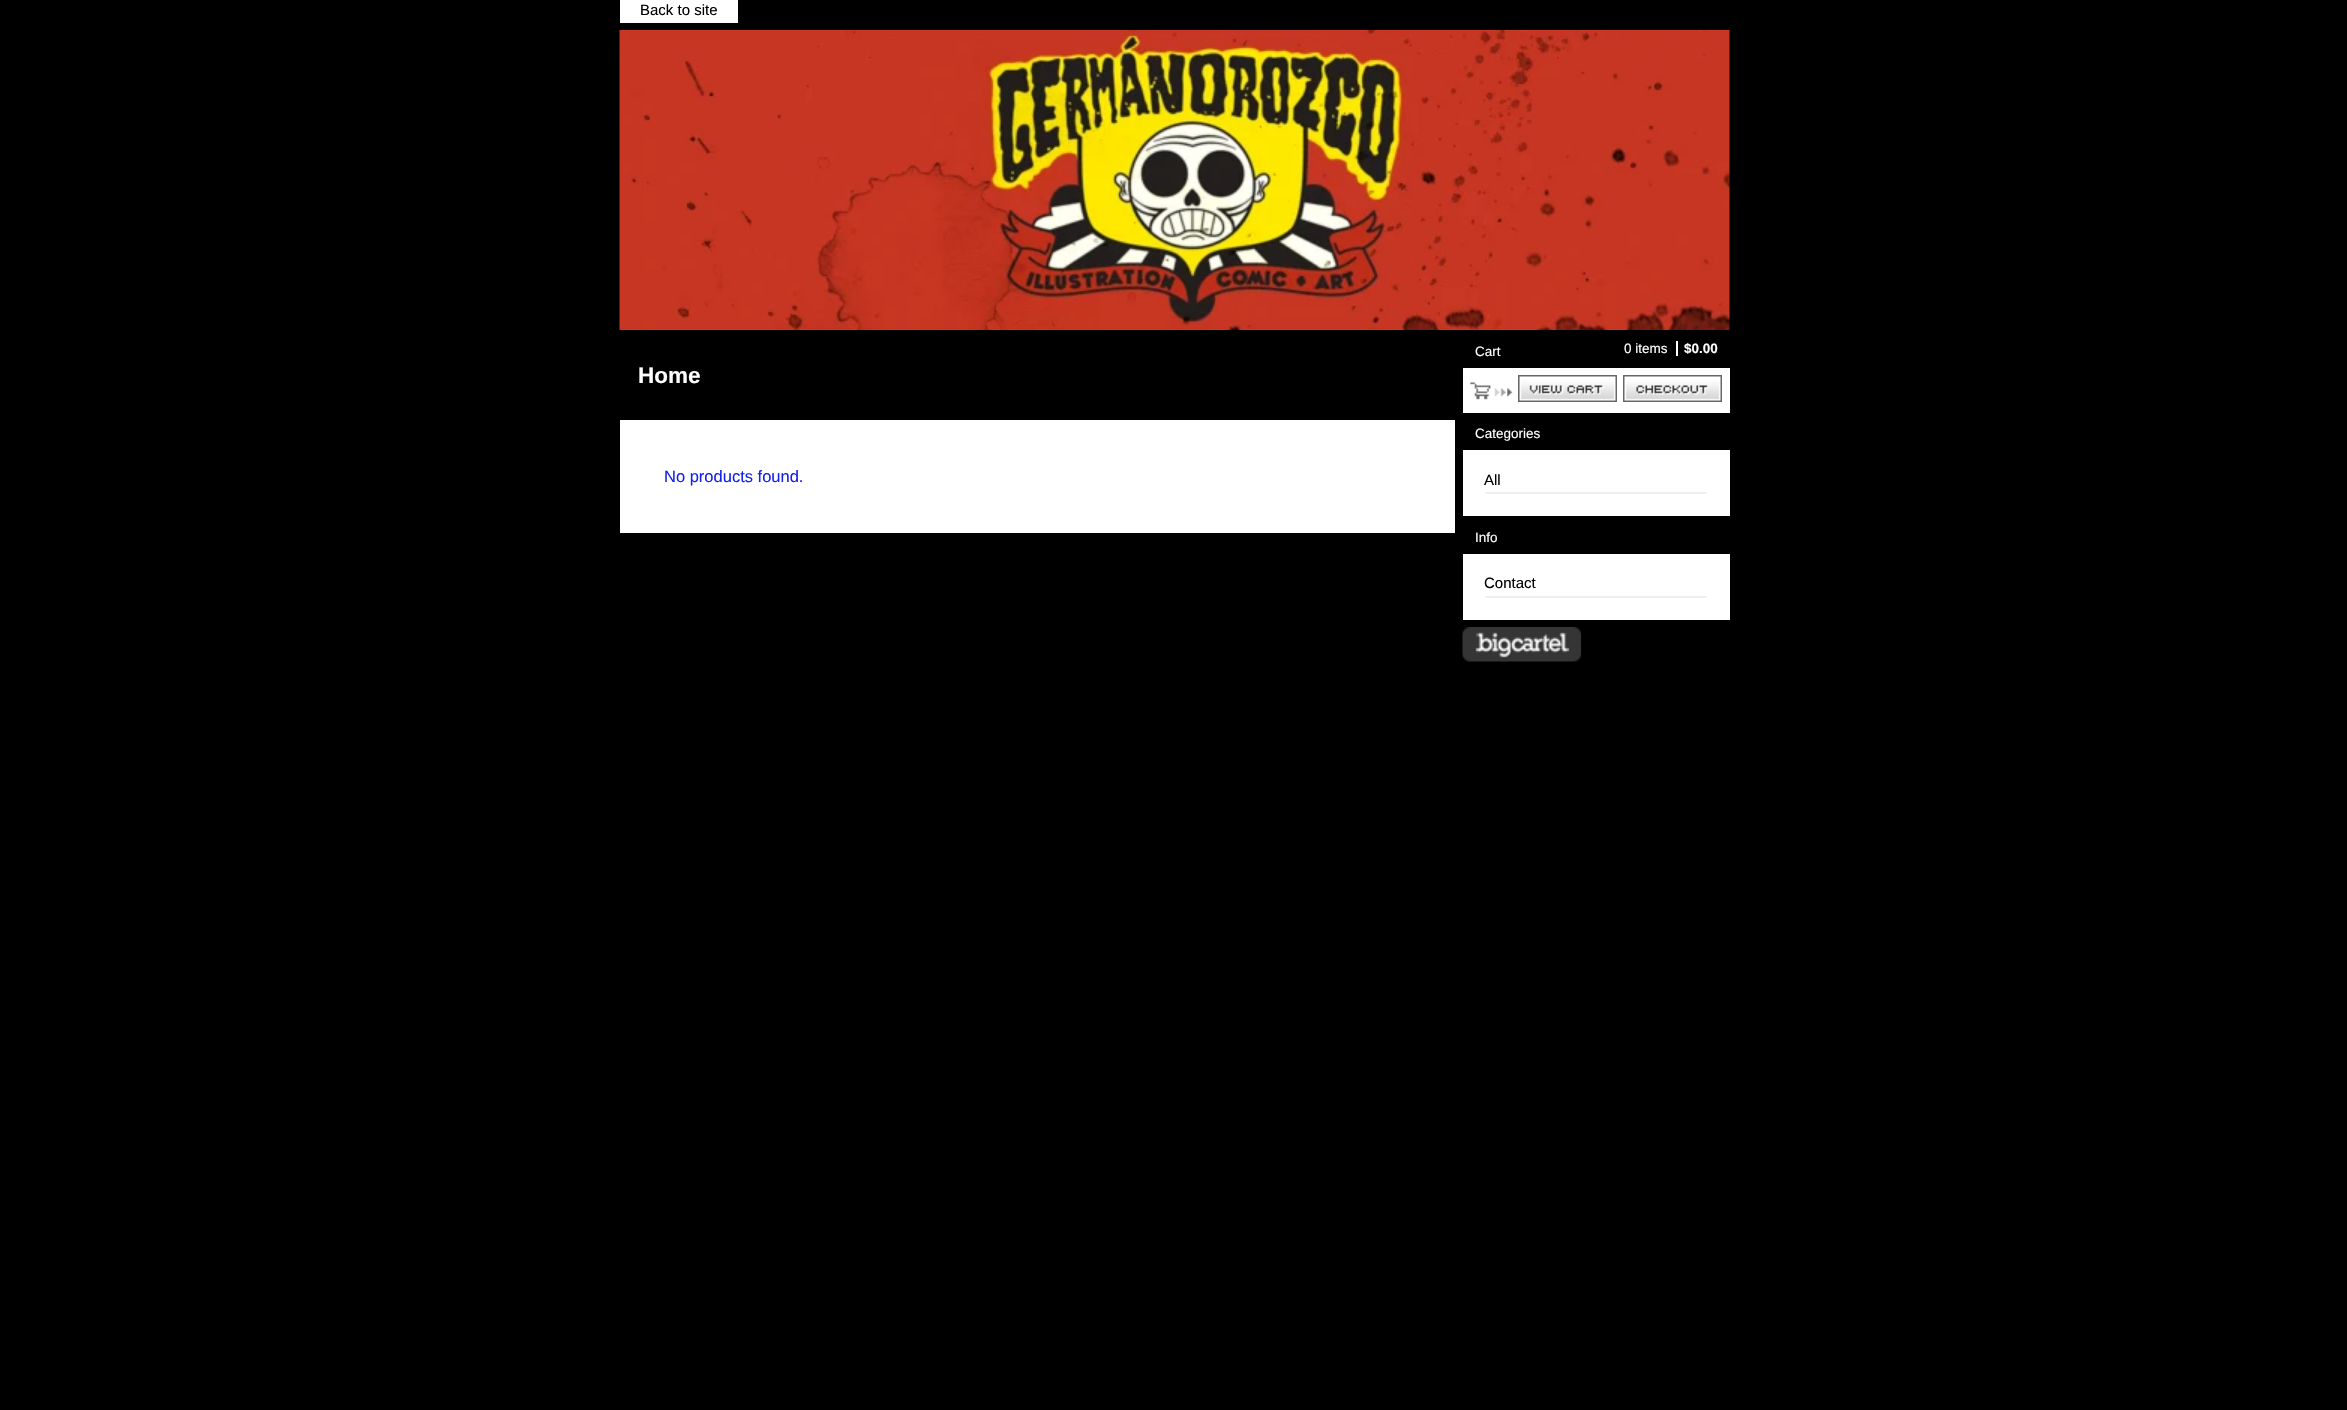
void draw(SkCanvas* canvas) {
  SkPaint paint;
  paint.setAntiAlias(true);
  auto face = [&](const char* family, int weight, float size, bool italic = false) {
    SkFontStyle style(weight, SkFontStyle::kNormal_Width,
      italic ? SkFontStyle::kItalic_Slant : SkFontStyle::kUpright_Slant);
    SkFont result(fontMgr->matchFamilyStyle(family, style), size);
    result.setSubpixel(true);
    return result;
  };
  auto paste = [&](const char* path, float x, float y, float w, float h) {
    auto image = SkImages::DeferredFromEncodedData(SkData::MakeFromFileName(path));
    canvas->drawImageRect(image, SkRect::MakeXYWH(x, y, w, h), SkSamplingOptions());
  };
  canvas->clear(0xff000000);
  paint.setColor(0xffffffff);
  canvas->drawRect(SkRect::MakeXYWH(620, 0, 118, 23), paint);
  paste("img/1.png", 619, 30, 1111, 300);
  canvas->drawRect(SkRect::MakeXYWH(620, 420, 835, 113), paint);
  canvas->drawRect(SkRect::MakeXYWH(1463, 368, 267, 45), paint);
  paste("img/2.png", 1470, 382, 43, 18);
  canvas->drawRect(SkRect::MakeXYWH(1676, 341, 2, 15), paint);
  paste("img/3.png", 1518, 375, 99, 27);
  paste("img/4.png", 1623, 375, 99, 27);
  {
    const struct { float x, y, w, h; SkColor color; } items[] = {
      {1463, 450, 267, 66, 0xffffffff},
      {1485, 492, 222, 2, 0xffefefef},
      {1463, 554, 267, 66, 0xffffffff},
      {1485, 596, 222, 2, 0xffefefef},
    };
    for (auto [x, y, w, h, color] : items) {
      paint.setColor(color);
      canvas->drawRect(SkRect::MakeXYWH(x, y, w, h), paint);
    }
  }
  paste("img/5.png", 1462, 627, 119, 35);
  auto f0 = face("Liberation Sans", 400, 15);
  paint.setColor(0xff000000);
  canvas->drawString("Back to site", 640, 15, f0, paint);
  auto f1 = face("Liberation Sans", 700, 22.5f);
  paint.setColor(0xffffffff);
  canvas->drawString("Home", 638, 383, f1, paint);
  auto f2 = face("Liberation Sans", 400, 16.5f);
  paint.setColor(0xff1320ec);
  canvas->drawString("No products found.", 664, 482, f2, paint);
  auto f3 = face("Liberation Sans", 400, 13.5f);
  paint.setColor(0xffffffff);
  canvas->drawString("Cart", 1475, 356, f3, paint);
  canvas->drawString("0 items", 1624, 353, f3, paint);
  auto f4 = face("Liberation Sans", 700, 13.5f);
  canvas->drawString("$0.00", 1684, 353, f4, paint);
  canvas->drawString("Categories", 1475, 438, f3, paint);
  paint.setColor(0xff000000);
  canvas->drawString("All", 1484, 485, f0, paint);
  paint.setColor(0xffffffff);
  canvas->drawString("Info", 1475, 542, f3, paint);
  paint.setColor(0xff000000);
  canvas->drawString("Contact", 1484, 588, f0, paint);
}
